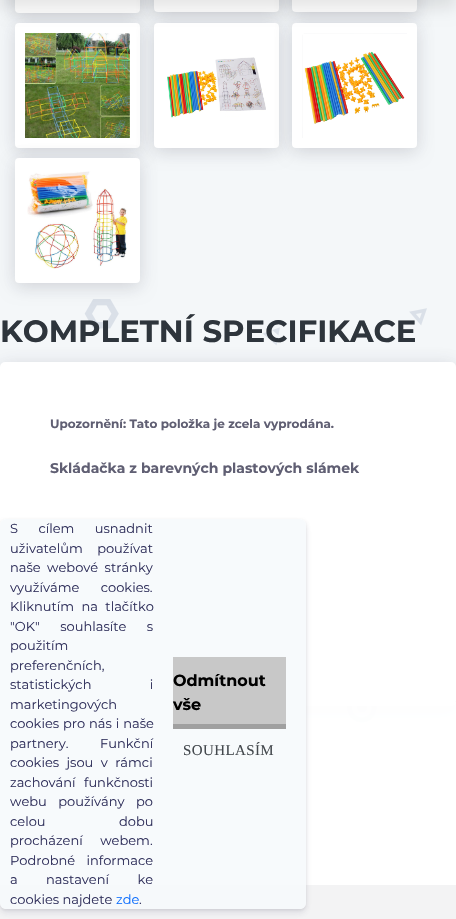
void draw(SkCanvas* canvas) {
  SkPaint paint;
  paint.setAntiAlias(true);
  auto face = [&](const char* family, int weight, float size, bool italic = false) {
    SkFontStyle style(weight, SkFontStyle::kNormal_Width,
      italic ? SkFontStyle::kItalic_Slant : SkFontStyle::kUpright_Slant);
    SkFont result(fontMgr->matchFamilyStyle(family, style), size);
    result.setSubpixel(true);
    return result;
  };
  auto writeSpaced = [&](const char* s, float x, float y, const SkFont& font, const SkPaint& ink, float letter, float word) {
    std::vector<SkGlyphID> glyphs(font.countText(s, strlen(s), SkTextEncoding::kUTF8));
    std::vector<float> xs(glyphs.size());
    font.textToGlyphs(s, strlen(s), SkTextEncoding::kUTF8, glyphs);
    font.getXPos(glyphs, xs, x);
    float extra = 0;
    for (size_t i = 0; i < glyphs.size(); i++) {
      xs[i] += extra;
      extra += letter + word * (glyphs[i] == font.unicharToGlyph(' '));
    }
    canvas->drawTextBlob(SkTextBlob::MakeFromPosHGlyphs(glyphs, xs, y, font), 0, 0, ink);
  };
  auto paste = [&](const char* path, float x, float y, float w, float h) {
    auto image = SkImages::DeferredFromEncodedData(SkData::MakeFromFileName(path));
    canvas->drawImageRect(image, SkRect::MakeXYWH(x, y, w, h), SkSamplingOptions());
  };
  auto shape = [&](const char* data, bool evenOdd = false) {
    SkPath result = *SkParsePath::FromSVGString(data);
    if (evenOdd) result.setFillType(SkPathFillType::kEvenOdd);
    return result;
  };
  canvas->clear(0xff0e0e1e);
  paint.setColor(0xfff4f7f9);
  canvas->drawRect(SkRect::MakeXYWH(0, 0, 456, 885), paint);
  paint.setColor(0x12000000);
  paint.setMaskFilter(SkMaskFilter::MakeBlur(kNormal_SkBlurStyle, 7.5f));
  canvas->drawRoundRect(SkRect::MakeXYWH(15, -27, 125, 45), 4, 4, paint);
  paint.setMaskFilter(nullptr);
  paint.setColor(0x1a32325d);
  paint.setMaskFilter(SkMaskFilter::MakeBlur(kNormal_SkBlurStyle, 10));
  canvas->drawRoundRect(SkRect::MakeXYWH(15, -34, 125, 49), 4, 4, paint);
  paint.setMaskFilter(nullptr);
  paint.setColor(0xffffffff);
  canvas->drawRoundRect(SkRect::MakeXYWH(15, -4, 125, 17), 4, 4, paint);
  paint.setColor(0x12000000);
  paint.setMaskFilter(SkMaskFilter::MakeBlur(kNormal_SkBlurStyle, 7.5f));
  canvas->drawRoundRect(SkRect::MakeXYWH(154, -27, 125, 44), 4, 4, paint);
  paint.setMaskFilter(nullptr);
  paint.setColor(0x1a32325d);
  paint.setMaskFilter(SkMaskFilter::MakeBlur(kNormal_SkBlurStyle, 10));
  canvas->drawRoundRect(SkRect::MakeXYWH(154, -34, 125, 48), 4, 4, paint);
  paint.setMaskFilter(nullptr);
  paint.setColor(0xffffffff);
  canvas->drawRoundRect(SkRect::MakeXYWH(154, -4, 125, 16), 4, 4, paint);
  paint.setColor(0x12000000);
  paint.setMaskFilter(SkMaskFilter::MakeBlur(kNormal_SkBlurStyle, 7.5f));
  canvas->drawRoundRect(SkRect::MakeXYWH(292, -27, 125, 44), 4, 4, paint);
  paint.setMaskFilter(nullptr);
  paint.setColor(0x1a32325d);
  paint.setMaskFilter(SkMaskFilter::MakeBlur(kNormal_SkBlurStyle, 10));
  canvas->drawRoundRect(SkRect::MakeXYWH(292, -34, 125, 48), 4, 4, paint);
  paint.setMaskFilter(nullptr);
  paint.setColor(0xffffffff);
  canvas->drawRoundRect(SkRect::MakeXYWH(292, -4, 125, 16), 4, 4, paint);
  paint.setColor(0x12000000);
  paint.setMaskFilter(SkMaskFilter::MakeBlur(kNormal_SkBlurStyle, 7.5f));
  canvas->drawRoundRect(SkRect::MakeXYWH(15, 28, 125, 125), 4, 4, paint);
  paint.setMaskFilter(nullptr);
  paint.setColor(0x1a32325d);
  paint.setMaskFilter(SkMaskFilter::MakeBlur(kNormal_SkBlurStyle, 10));
  canvas->drawRoundRect(SkRect::MakeXYWH(15, 25, 125, 125), 4, 4, paint);
  paint.setMaskFilter(nullptr);
  paint.setColor(0xffffffff);
  canvas->drawRoundRect(SkRect::MakeXYWH(15, 23, 125, 125), 4, 4, paint);
  paint.setColor(0x12000000);
  paint.setMaskFilter(SkMaskFilter::MakeBlur(kNormal_SkBlurStyle, 7.5f));
  canvas->drawRoundRect(SkRect::MakeXYWH(154, 28, 125, 125), 4, 4, paint);
  paint.setMaskFilter(nullptr);
  paste("img/1.png", 25, 33, 105, 105);
  paint.setColor(0x1a32325d);
  paint.setMaskFilter(SkMaskFilter::MakeBlur(kNormal_SkBlurStyle, 10));
  canvas->drawRoundRect(SkRect::MakeXYWH(154, 25, 125, 125), 4, 4, paint);
  paint.setMaskFilter(nullptr);
  paint.setColor(0xffffffff);
  canvas->drawRoundRect(SkRect::MakeXYWH(154, 23, 125, 125), 4, 4, paint);
  paint.setColor(0x12000000);
  paint.setMaskFilter(SkMaskFilter::MakeBlur(kNormal_SkBlurStyle, 7.5f));
  canvas->drawRoundRect(SkRect::MakeXYWH(292, 28, 125, 125), 4, 4, paint);
  paint.setMaskFilter(nullptr);
  paste("img/2.png", 167, 57, 99, 61);
  paint.setColor(0x1a32325d);
  paint.setMaskFilter(SkMaskFilter::MakeBlur(kNormal_SkBlurStyle, 10));
  canvas->drawRoundRect(SkRect::MakeXYWH(292, 25, 125, 125), 4, 4, paint);
  paint.setMaskFilter(nullptr);
  paint.setColor(0xffffffff);
  canvas->drawRoundRect(SkRect::MakeXYWH(292, 23, 125, 125), 4, 4, paint);
  paint.setColor(0x1a000000);
  paint.setMaskFilter(SkMaskFilter::MakeBlur(kNormal_SkBlurStyle, 8));
  canvas->drawRect(SkRect::MakeXYWH(0, -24, 456, 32), paint);
  paint.setMaskFilter(nullptr);
  paste("img/3.png", 302, 33, 105, 105);
  paste("img/5.png", 4, 299, 423, 427);
  paint.setColor(0x12000000);
  paint.setMaskFilter(SkMaskFilter::MakeBlur(kNormal_SkBlurStyle, 7.5f));
  canvas->drawRoundRect(SkRect::MakeXYWH(15, 163, 125, 125), 4, 4, paint);
  paint.setMaskFilter(nullptr);
  paint.setColor(0x1a32325d);
  paint.setMaskFilter(SkMaskFilter::MakeBlur(kNormal_SkBlurStyle, 10));
  canvas->drawRoundRect(SkRect::MakeXYWH(15, 160, 125, 125), 4, 4, paint);
  paint.setMaskFilter(nullptr);
  paint.setColor(0xffffffff);
  canvas->drawRoundRect(SkRect::MakeXYWH(15, 158, 125, 125), 4, 4, paint);
  paste("img/4.png", 27, 171, 101, 98);
  paint.setColor(0x12000000);
  paint.setMaskFilter(SkMaskFilter::MakeBlur(kNormal_SkBlurStyle, 7.5f));
  canvas->drawRoundRect(SkRect::MakeXYWH(0, 367, 456, 344), 5, 5, paint);
  paint.setMaskFilter(nullptr);
  paint.setColor(0x1a32325d);
  paint.setMaskFilter(SkMaskFilter::MakeBlur(kNormal_SkBlurStyle, 10));
  canvas->drawRoundRect(SkRect::MakeXYWH(0, 364, 456, 344), 5, 5, paint);
  paint.setMaskFilter(nullptr);
  paint.setColor(0xffffffff);
  canvas->drawRoundRect(SkRect::MakeXYWH(0, 362, 456, 344), 5, 5, paint);
  paint.setColor(0xf2ffffff);
  canvas->drawRect(SkRect::MakeXYWH(0, 702, 456, 217), paint);
  canvas->save();
  canvas->clipPath(shape("M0 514H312V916H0ZM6 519H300C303.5 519 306 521.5 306 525V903C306 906.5 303.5 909 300 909H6C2.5 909 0 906.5 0 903V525C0 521.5 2.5 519 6 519Z", true), true);
  paint.setColor(0x14000000);
  paint.setMaskFilter(SkMaskFilter::MakeBlur(kNormal_SkBlurStyle, 1.5f));
  canvas->drawRoundRect(SkRect::MakeXYWH(0, 520, 306, 390), 6, 6, paint);
  paint.setMaskFilter(nullptr);
  canvas->restore();
  canvas->save();
  canvas->clipPath(shape("M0 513H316V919H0ZM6 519H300C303.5 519 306 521.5 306 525V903C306 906.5 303.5 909 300 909H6C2.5 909 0 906.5 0 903V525C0 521.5 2.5 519 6 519Z", true), true);
  paint.setColor(0x1c32325d);
  paint.setMaskFilter(SkMaskFilter::MakeBlur(kNormal_SkBlurStyle, 3));
  canvas->drawRoundRect(SkRect::MakeXYWH(0, 523, 306, 390), 6, 6, paint);
  paint.setMaskFilter(nullptr);
  canvas->restore();
  paint.setColor(0xe6f6f9fc);
  canvas->drawRoundRect(SkRect::MakeXYWH(0, 519, 306, 390), 6, 6, paint);
  paint.setColor(0xffc8c8c8);
  canvas->drawRect(SkRect::MakeXYWH(173, 657, 113, 67), paint);
  paint.setColor(0xffa0a0a0);
  canvas->drawRect(SkRect::MakeXYWH(173, 724, 113, 5), paint);
  auto f0 = face("Montserrat", 700, 30.75f);
  paint.setColor(0xff2e353c);
  canvas->drawString("KOMPLETNÍ SPECIFIKACE", 0, 342, f0, paint);
  auto f1 = face("Montserrat", 700, 12);
  paint.setColor(0xff605f73);
  canvas->drawString("Upozornění: Tato položka je zcela vyprodána.", 50, 428, f1, paint);
  auto f2 = face("Montserrat", 700, 14);
  canvas->drawString("Skládačka z barevných plastových slámek", 50, 473, f2, paint);
  auto f3 = face("Montserrat", 400, 13);
  paint.setColor(0xff32325d);
  writeSpaced("S cílem usnadnit", 10, 533, f3, paint, 0, 17);
  writeSpaced("uživatelům používat", 10, 553, f3, paint, 0, 11);
  writeSpaced("naše webové stránky", 10, 572, f3, paint, 0, 3);
  writeSpaced("využíváme cookies.", 10, 592, f3, paint, 0, 18);
  writeSpaced("Kliknutím na tlačítko", 10, 611, f3, paint, 0, 4);
  writeSpaced("\"OK\" souhlasíte s", 10, 631, f3, paint, 0, 17);
  canvas->drawString("použitím", 10, 650, f3, paint);
  canvas->drawString("preferenčních,", 10, 670, f3, paint);
  writeSpaced("statistických i", 10, 689, f3, paint, 0, 55);
  canvas->drawString("marketingových", 10, 709, f3, paint);
  writeSpaced("cookies pro nás i naše", 10, 728, f3, paint, 0, 0.5f);
  writeSpaced("partnery. Funkční", 10, 748, f3, paint, 0, 28);
  writeSpaced("cookies jsou v rámci", 10, 767, f3, paint, 0, 4);
  writeSpaced("zachování funkčnosti", 10, 787, f3, paint, 0, 5);
  writeSpaced("webu používány po", 10, 806, f3, paint, 0, 8);
  writeSpaced("celou dobu", 10, 826, f3, paint, 0, 70);
  writeSpaced("procházení webem.", 10, 845, f3, paint, 0, 14);
  writeSpaced("Podrobné informace", 10, 865, f3, paint, 0, 8);
  writeSpaced("a nastavení ke", 10, 884, f3, paint, 0, 25);
  canvas->drawString("cookies najdete", 10, 904, f3, paint);
  paint.setColor(0xff0d6efd);
  canvas->drawString("zde", 116, 904, f3, paint);
  paint.setColor(0xff32325d);
  canvas->drawString(".", 139, 904, f3, paint);
  auto f4 = face("Montserrat", 700, 16);
  paint.setColor(0xff000000);
  canvas->drawString("Odmítnout", 173, 686, f4, paint);
  canvas->drawString("vše", 173, 710, f4, paint);
  auto f5 = face("Liberation Serif", 400, 15);
  paint.setColor(0xff43484d);
  writeSpaced("SOUHLASÍM", 183, 755, f5, paint, 0.4f, 0);
}
